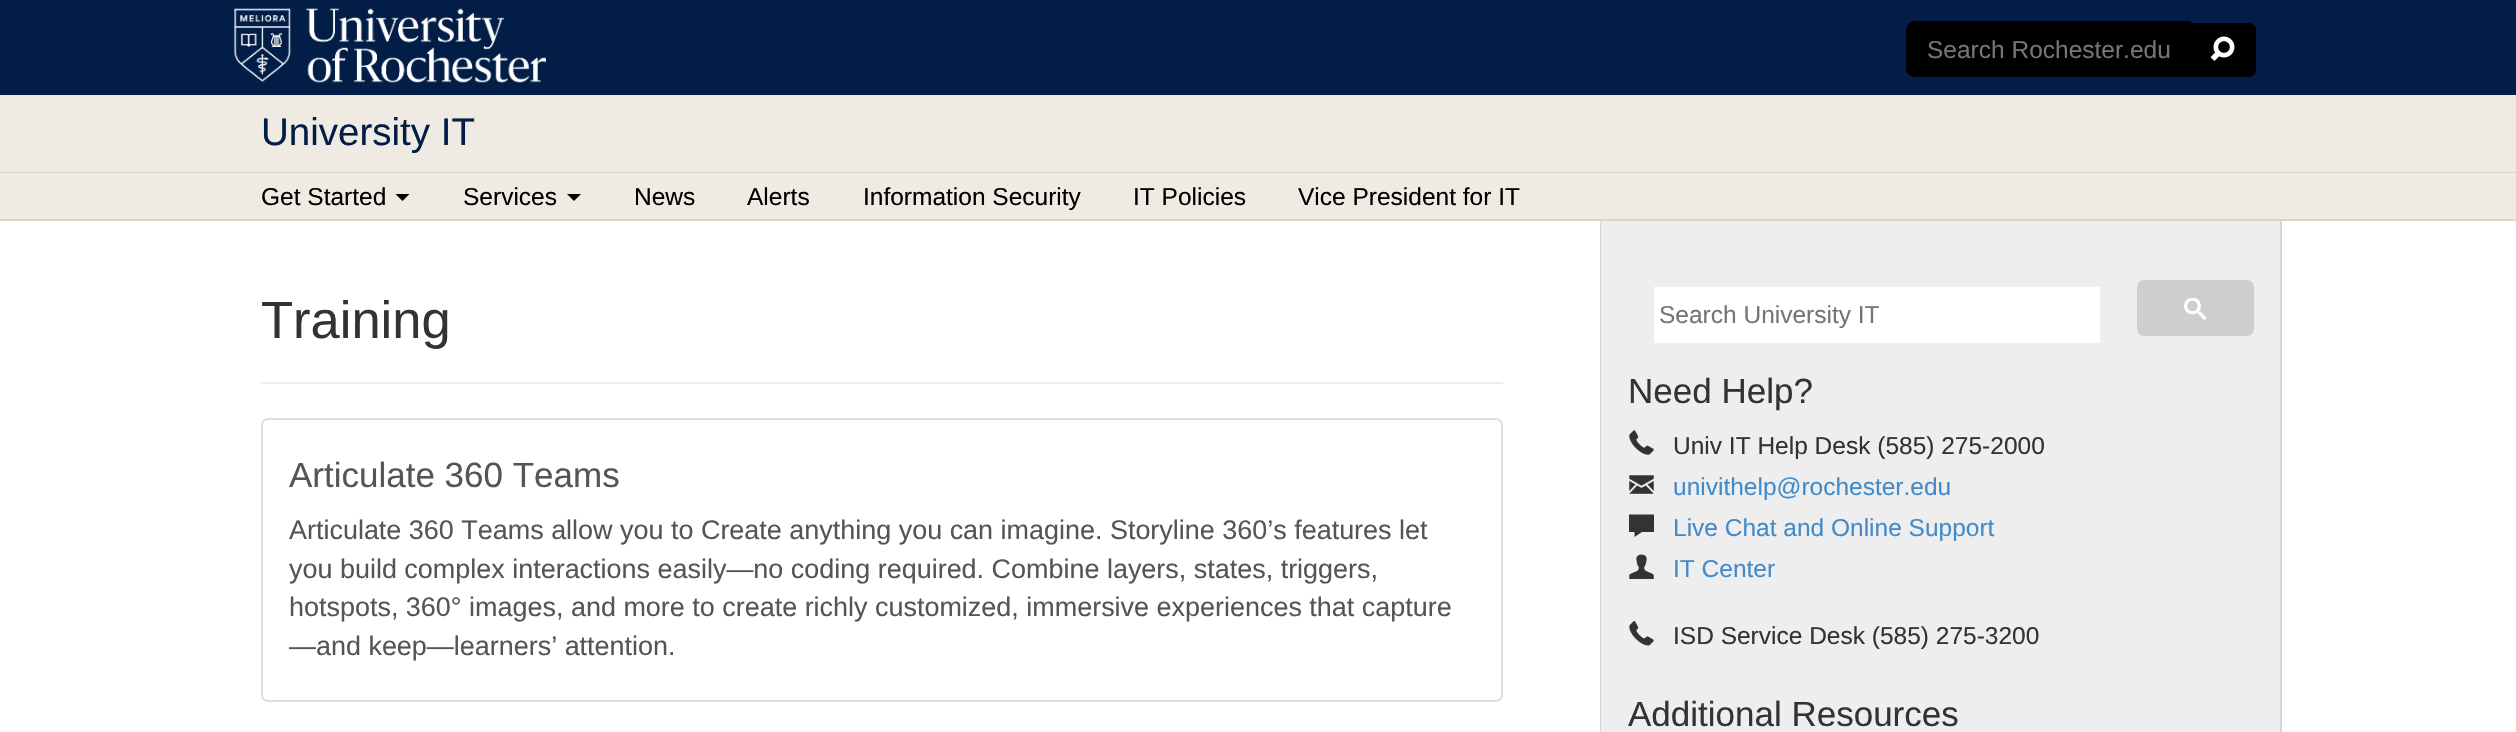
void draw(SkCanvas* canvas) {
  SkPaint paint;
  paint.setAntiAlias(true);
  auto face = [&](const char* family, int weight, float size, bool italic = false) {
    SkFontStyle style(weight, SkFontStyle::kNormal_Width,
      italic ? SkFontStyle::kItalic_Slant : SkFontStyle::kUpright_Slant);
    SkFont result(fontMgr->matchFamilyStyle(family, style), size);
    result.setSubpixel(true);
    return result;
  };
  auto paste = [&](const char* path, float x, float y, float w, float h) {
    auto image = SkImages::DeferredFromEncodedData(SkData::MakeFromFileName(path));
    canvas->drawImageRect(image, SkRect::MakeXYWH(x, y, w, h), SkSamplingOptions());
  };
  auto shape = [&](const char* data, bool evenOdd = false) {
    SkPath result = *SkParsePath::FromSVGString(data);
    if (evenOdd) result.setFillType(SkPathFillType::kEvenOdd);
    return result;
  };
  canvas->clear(0xffffffff);
  paint.setColor(0xff021e47);
  canvas->drawRect(SkRect::MakeXYWH(0, 0, 2516, 95), paint);
  paste("img/1.png", 234, 8, 312, 75);
  paint.setColor(0xff000000);
  canvas->drawPath(shape("M1915 21H2191V77H1915C1910 77 1906 73 1906 68V30C1906 25 1910 21 1915 21Z"), paint);
  canvas->drawPath(shape("M2189 23H2249C2253 23 2256 26 2256 30V70C2256 74 2253 77 2249 77H2189Z"), paint);
  paste("img/2.png", 2210, 36, 25, 25);
  {
    const struct { float x, y, w, h; SkColor color; } items[] = {
      {0, 95, 2516, 77, 0xffefebe2},
      {0, 172, 2516, 1, 0xffddd4c1},
      {0, 173, 2516, 46, 0xffefebe2},
      {1600, 221, 681, 511, 0xffeeeeee},
    };
    for (auto [x, y, w, h, color] : items) {
      paint.setColor(color);
      canvas->drawRect(SkRect::MakeXYWH(x, y, w, h), paint);
    }
  }
  paint.setColor(0xffd5d5d5);
  canvas->drawPath(shape("M2282 220L2280 222V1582C2280 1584 2279 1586 2278 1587L2279 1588C2281 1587 2282 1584 2282 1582Z"), paint);
  paint.setColor(0xffddd4c1);
  canvas->drawRect(SkRect::MakeXYWH(0, 219, 2516, 2), paint);
  paint.setColor(0xff000000);
  canvas->drawPath(shape("M395.5 194H409.5L402.5 201Z"), paint);
  canvas->drawPath(shape("M567 194H581L574 201Z"), paint);
  paint.setColor(0xffeeeeee);
  canvas->drawRect(SkRect::MakeXYWH(261, 382, 1242, 2), paint);
  paint.setStroke(true);
  paint.setStrokeWidth(2);
  paint.setColor(0xffdddddd);
  canvas->drawRoundRect(SkRect::MakeXYWH(262, 419, 1240, 282), 6, 6, paint);
  paint.setStroke(false);
  paint.setColor(0xffd5d5d5);
  canvas->drawPath(shape("M1601 222V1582C1601 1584 1602 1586 1603 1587L1602 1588C1601 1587 1600 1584 1600 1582V221Z"), paint);
  paint.setColor(0xffffffff);
  canvas->drawRect(SkRect::MakeXYWH(1654, 287, 446, 56), paint);
  paint.setColor(0xffcecece);
  canvas->drawRoundRect(SkRect::MakeXYWH(2137, 280, 117, 56), 7, 7, paint);
  paste("img/3.png", 2184, 298, 23, 22);
  paste("img/4.png", 1629, 430, 25, 25);
  paste("img/5.png", 1629, 475, 25, 19);
  paint.setColor(0xff333333);
  canvas->drawPath(shape("M1629 514.5V532H1634.5V537L1642 532H1654V514.5Z"), paint);
  paste("img/6.png", 1629, 554, 25, 25);
  paste("img/7.png", 1629, 621, 25, 25);
  auto f0 = face("Liberation Sans", 400, 24.5f);
  paint.setColor(0xff757575);
  canvas->drawString("Search Rochester.edu", 1927, 58, f0, paint);
  auto f1 = face("Liberation Sans", 400, 38.5f);
  paint.setColor(0xff021e47);
  canvas->drawString("University IT", 261, 145, f1, paint);
  paint.setColor(0xff000000);
  {
    const struct { const char* s; float x, y; } items[] = {
      {"Get Started", 261, 205},
      {"Services", 463, 205},
      {"News", 634, 205},
      {"Alerts", 747, 205},
      {"Information Security", 863, 205},
      {"IT Policies", 1133, 205},
      {"Vice President for IT", 1298, 205},
    };
    for (auto [s, x, y] : items) {
      canvas->drawString(s, x, y, f0, paint);
    }
  }
  auto f2 = face("Liberation Sans", 400, 52.5f);
  paint.setColor(0xff333333);
  canvas->drawString("Training", 261, 338, f2, paint);
  auto f3 = face("Liberation Sans", 400, 35);
  paint.setColor(0xff555555);
  canvas->drawString("Articulate 360 Teams", 289, 487, f3, paint);
  auto f4 = face("Liberation Sans", 400, 26.95f);
  {
    const struct { const char* s; float x, y; } items[] = {
      {"Articulate 360 Teams allow you to Create anything you can imagine. Storyline 360’s features let", 289, 539},
      {"you build complex interactions easily—no coding required. Combine layers, states, triggers,", 289, 578},
      {"hotspots, 360° images, and more to create richly customized, immersive experiences that capture", 289, 616},
      {"—and keep—learners’ attention.", 289, 655},
    };
    for (auto [s, x, y] : items) {
      canvas->drawString(s, x, y, f4, paint);
    }
  }
  paint.setColor(0xff757575);
  canvas->drawString("Search University IT", 1659, 323, f0, paint);
  paint.setColor(0xff333333);
  canvas->drawString("Need Help?", 1628, 403, f3, paint);
  canvas->drawString("Univ IT Help Desk (585) 275-2000", 1673, 454, f0, paint);
  paint.setColor(0xff428bca);
  {
    const struct { const char* s; float x, y; } items[] = {
      {"univithelp@rochester.edu", 1673, 495},
      {"Live Chat and Online Support", 1673, 536},
      {"IT Center", 1673, 577},
    };
    for (auto [s, x, y] : items) {
      canvas->drawString(s, x, y, f0, paint);
    }
  }
  paint.setColor(0xff333333);
  canvas->drawString("ISD Service Desk (585) 275-3200", 1673, 644, f0, paint);
  canvas->drawString("Additional Resources", 1628, 726, f3, paint);
}
